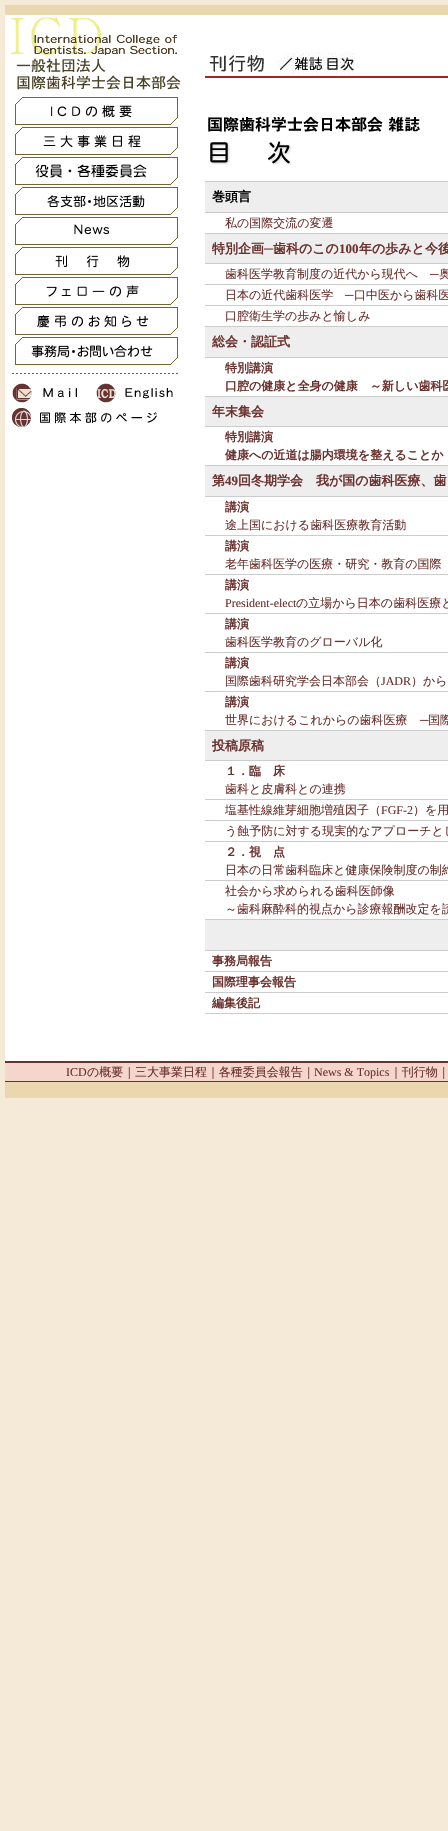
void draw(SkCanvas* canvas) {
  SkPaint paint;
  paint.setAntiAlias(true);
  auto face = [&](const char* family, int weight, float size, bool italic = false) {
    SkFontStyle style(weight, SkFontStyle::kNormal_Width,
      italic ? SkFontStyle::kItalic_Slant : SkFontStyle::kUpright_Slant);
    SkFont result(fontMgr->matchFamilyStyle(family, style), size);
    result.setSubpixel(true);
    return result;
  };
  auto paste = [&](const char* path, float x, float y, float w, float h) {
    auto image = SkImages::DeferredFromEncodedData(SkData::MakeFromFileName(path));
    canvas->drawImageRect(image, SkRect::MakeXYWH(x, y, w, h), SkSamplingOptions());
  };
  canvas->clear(0xfff4ead7);
  paint.setColor(0xffead6af);
  canvas->drawRect(SkRect::MakeXYWH(5, 5, 443, 10), paint);
  paint.setColor(0xffffffff);
  canvas->drawRect(SkRect::MakeXYWH(5, 15, 443, 1046), paint);
  paste("img/1.png", 11, 17, 170, 73);
  paste("img/2.png", 15, 97, 163, 28);
  paste("img/3.png", 15, 127, 163, 28);
  paste("img/4.png", 15, 157, 163, 28);
  paste("img/5.png", 15, 187, 163, 28);
  paste("img/6.png", 15, 217, 163, 28);
  paste("img/7.png", 15, 247, 163, 28);
  paste("img/8.png", 15, 277, 163, 28);
  paste("img/9.png", 15, 307, 163, 28);
  paste("img/10.png", 15, 337, 163, 28);
  paste("img/11.png", 12, 373, 166, 1);
  paste("img/12.png", 12, 383, 65, 20);
  paste("img/13.png", 96, 383, 77, 20);
  paste("img/14.png", 12, 408, 145, 19);
  paint.setColor(0xffa82424);
  canvas->drawRect(SkRect::MakeXYWH(205, 76, 243, 2), paint);
  paste("img/15.png", 209, 55, 55, 17);
  paste("img/16.png", 276, 52, 79, 22);
  paste("img/17.png", 208, 116, 212, 49);
  {
    const struct { float x, y, w, h; SkColor color; } items[] = {
      {205, 181, 243, 1, 0xffcccccc},
      {205, 182, 243, 30, 0xffeeeeee},
      {205, 212, 243, 1, 0xffcccccc},
      {205, 233, 243, 1, 0xffcccccc},
      {205, 234, 243, 29, 0xffeeeeee},
      {205, 263, 243, 1, 0xffcccccc},
      {205, 284, 243, 1, 0xffcccccc},
      {205, 305, 243, 1, 0xffcccccc},
      {205, 326, 243, 1, 0xffcccccc},
      {205, 327, 243, 30, 0xffeeeeee},
      {205, 357, 243, 1, 0xffcccccc},
      {205, 396, 243, 1, 0xffcccccc},
      {205, 397, 243, 29, 0xffeeeeee},
      {205, 426, 243, 1, 0xffcccccc},
      {205, 465, 243, 1, 0xffcccccc},
      {205, 466, 243, 30, 0xffeeeeee},
      {205, 496, 243, 1, 0xffcccccc},
      {205, 535, 243, 1, 0xffcccccc},
      {205, 574, 243, 1, 0xffcccccc},
      {205, 613, 243, 1, 0xffcccccc},
      {205, 652, 243, 1, 0xffcccccc},
      {205, 691, 243, 1, 0xffcccccc},
      {205, 730, 243, 1, 0xffcccccc},
      {205, 731, 243, 29, 0xffeeeeee},
      {205, 760, 243, 1, 0xffcccccc},
      {205, 799, 243, 1, 0xffcccccc},
      {205, 820, 243, 1, 0xffcccccc},
      {205, 841, 243, 1, 0xffcccccc},
      {205, 880, 243, 1, 0xffcccccc},
      {205, 919, 243, 1, 0xffcccccc},
      {205, 920, 243, 30, 0xffeeeeee},
      {205, 950, 243, 1, 0xffcccccc},
      {205, 971, 243, 1, 0xffcccccc},
      {205, 992, 243, 1, 0xffcccccc},
      {205, 1013, 243, 1, 0xffcccccc},
      {5, 1061, 443, 2, 0xff6b312e},
      {5, 1063, 443, 18, 0xfff5d6cc},
      {5, 1081, 443, 1, 0xff6b312e},
      {5, 1082, 443, 16, 0xffead6af},
    };
    for (auto [x, y, w, h, color] : items) {
      paint.setColor(color);
      canvas->drawRect(SkRect::MakeXYWH(x, y, w, h), paint);
    }
  }
  auto f0 = face("WenQuanYi Zen Hei", 700, 13);
  paint.setColor(0xff000000);
  canvas->drawString("巻頭言", 212, 201, f0, paint);
  auto f1 = face("WenQuanYi Zen Hei", 500, 12);
  paint.setColor(0xff6b312e);
  canvas->drawString("私の国際交流の変遷", 225, 227, f1, paint);
  canvas->drawString("特別企画", 212, 253, f0, paint);
  auto f2 = face("Liberation Serif", 700, 13);
  canvas->drawString("─", 264, 253, f2, paint);
  canvas->drawString("歯科のこの", 273, 253, f0, paint);
  canvas->drawString("100", 339, 253, f2, paint);
  canvas->drawString("年の歩みと今後", 359, 253, f0, paint);
  canvas->drawString("歯科医学教育制度の近代から現代へ", 225, 278, f1, paint);
  auto f3 = face("Liberation Serif", 400, 12);
  canvas->drawString("─", 430, 278, f3, paint);
  canvas->drawString("奥", 439, 278, f1, paint);
  canvas->drawString("日本の近代歯科医学", 225, 299, f1, paint);
  canvas->drawString("─", 345, 299, f3, paint);
  canvas->drawString("口中医から歯科医", 354, 299, f1, paint);
  canvas->drawString("口腔衛生学の歩みと愉しみ", 225, 320, f1, paint);
  canvas->drawString("総会・認証式", 212, 346, f0, paint);
  auto f4 = face("WenQuanYi Zen Hei", 700, 12);
  canvas->drawString("特別講演", 225, 372, f4, paint);
  canvas->drawString("口腔の健康と全身の健康　～新しい歯科医", 225, 390, f4, paint);
  canvas->drawString("年末集会", 212, 416, f0, paint);
  canvas->drawString("特別講演", 225, 441, f4, paint);
  canvas->drawString("健康への近道は腸内環境を整えることか", 225, 459, f4, paint);
  canvas->drawString("第", 212, 485, f0, paint);
  canvas->drawString("49", 225, 485, f2, paint);
  canvas->drawString("回冬期学会　我が国の歯科医療、歯", 238, 485, f0, paint);
  canvas->drawString("講演", 225, 511, f4, paint);
  canvas->drawString("途上国における歯科医療教育活動", 225, 529, f1, paint);
  canvas->drawString("講演", 225, 550, f4, paint);
  canvas->drawString("老年歯科医学の医療・研究・教育の国際", 225, 568, f1, paint);
  canvas->drawString("講演", 225, 589, f4, paint);
  canvas->drawString("President-elect", 225, 607, f3, paint);
  canvas->drawString("の立場から日本の歯科医療と", 296, 607, f1, paint);
  canvas->drawString("講演", 225, 628, f4, paint);
  canvas->drawString("歯科医学教育のグローバル化", 225, 646, f1, paint);
  canvas->drawString("講演", 225, 667, f4, paint);
  canvas->drawString("国際歯科研究学会日本部会（", 225, 685, f1, paint);
  canvas->drawString("JADR", 381, 685, f3, paint);
  canvas->drawString("）から", 411, 685, f1, paint);
  canvas->drawString("講演", 225, 706, f4, paint);
  canvas->drawString("世界におけるこれからの歯科医療", 225, 724, f1, paint);
  canvas->drawString("─", 420, 724, f3, paint);
  canvas->drawString("国際", 428, 724, f1, paint);
  canvas->drawString("投稿原稿", 212, 750, f0, paint);
  canvas->drawString("１．臨　床", 225, 775, f4, paint);
  canvas->drawString("歯科と皮膚科との連携", 225, 793, f1, paint);
  canvas->drawString("塩基性線維芽細胞増殖因子（", 225, 814, f1, paint);
  canvas->drawString("FGF-2", 381, 814, f3, paint);
  canvas->drawString("）を用", 413, 814, f1, paint);
  canvas->drawString("う蝕予防に対する現実的なアプローチとし", 225, 835, f1, paint);
  canvas->drawString("２．視　点", 225, 856, f4, paint);
  {
    const struct { const char* s; float x, y; } items[] = {
      {"日本の日常歯科臨床と健康保険制度の制約", 225, 874},
      {"社会から求められる歯科医師像", 225, 895},
      {"～歯科麻酔科的視点から診療報酬改定を読", 225, 913},
    };
    for (auto [s, x, y] : items) {
      canvas->drawString(s, x, y, f1, paint);
    }
  }
  {
    const struct { const char* s; float x, y; } items[] = {
      {"事務局報告", 212, 965},
      {"国際理事会報告", 212, 986},
      {"編集後記", 212, 1007},
    };
    for (auto [s, x, y] : items) {
      canvas->drawString(s, x, y, f4, paint);
    }
  }
  canvas->drawString("ICD", 66, 1076, f3, paint);
  canvas->drawString("の概要｜三大事業日程｜各種委員会報告｜", 87, 1076, f1, paint);
  canvas->drawString("News & Topics", 314, 1076, f3, paint);
  canvas->drawString("｜刊行物｜", 390, 1076, f1, paint);
}
